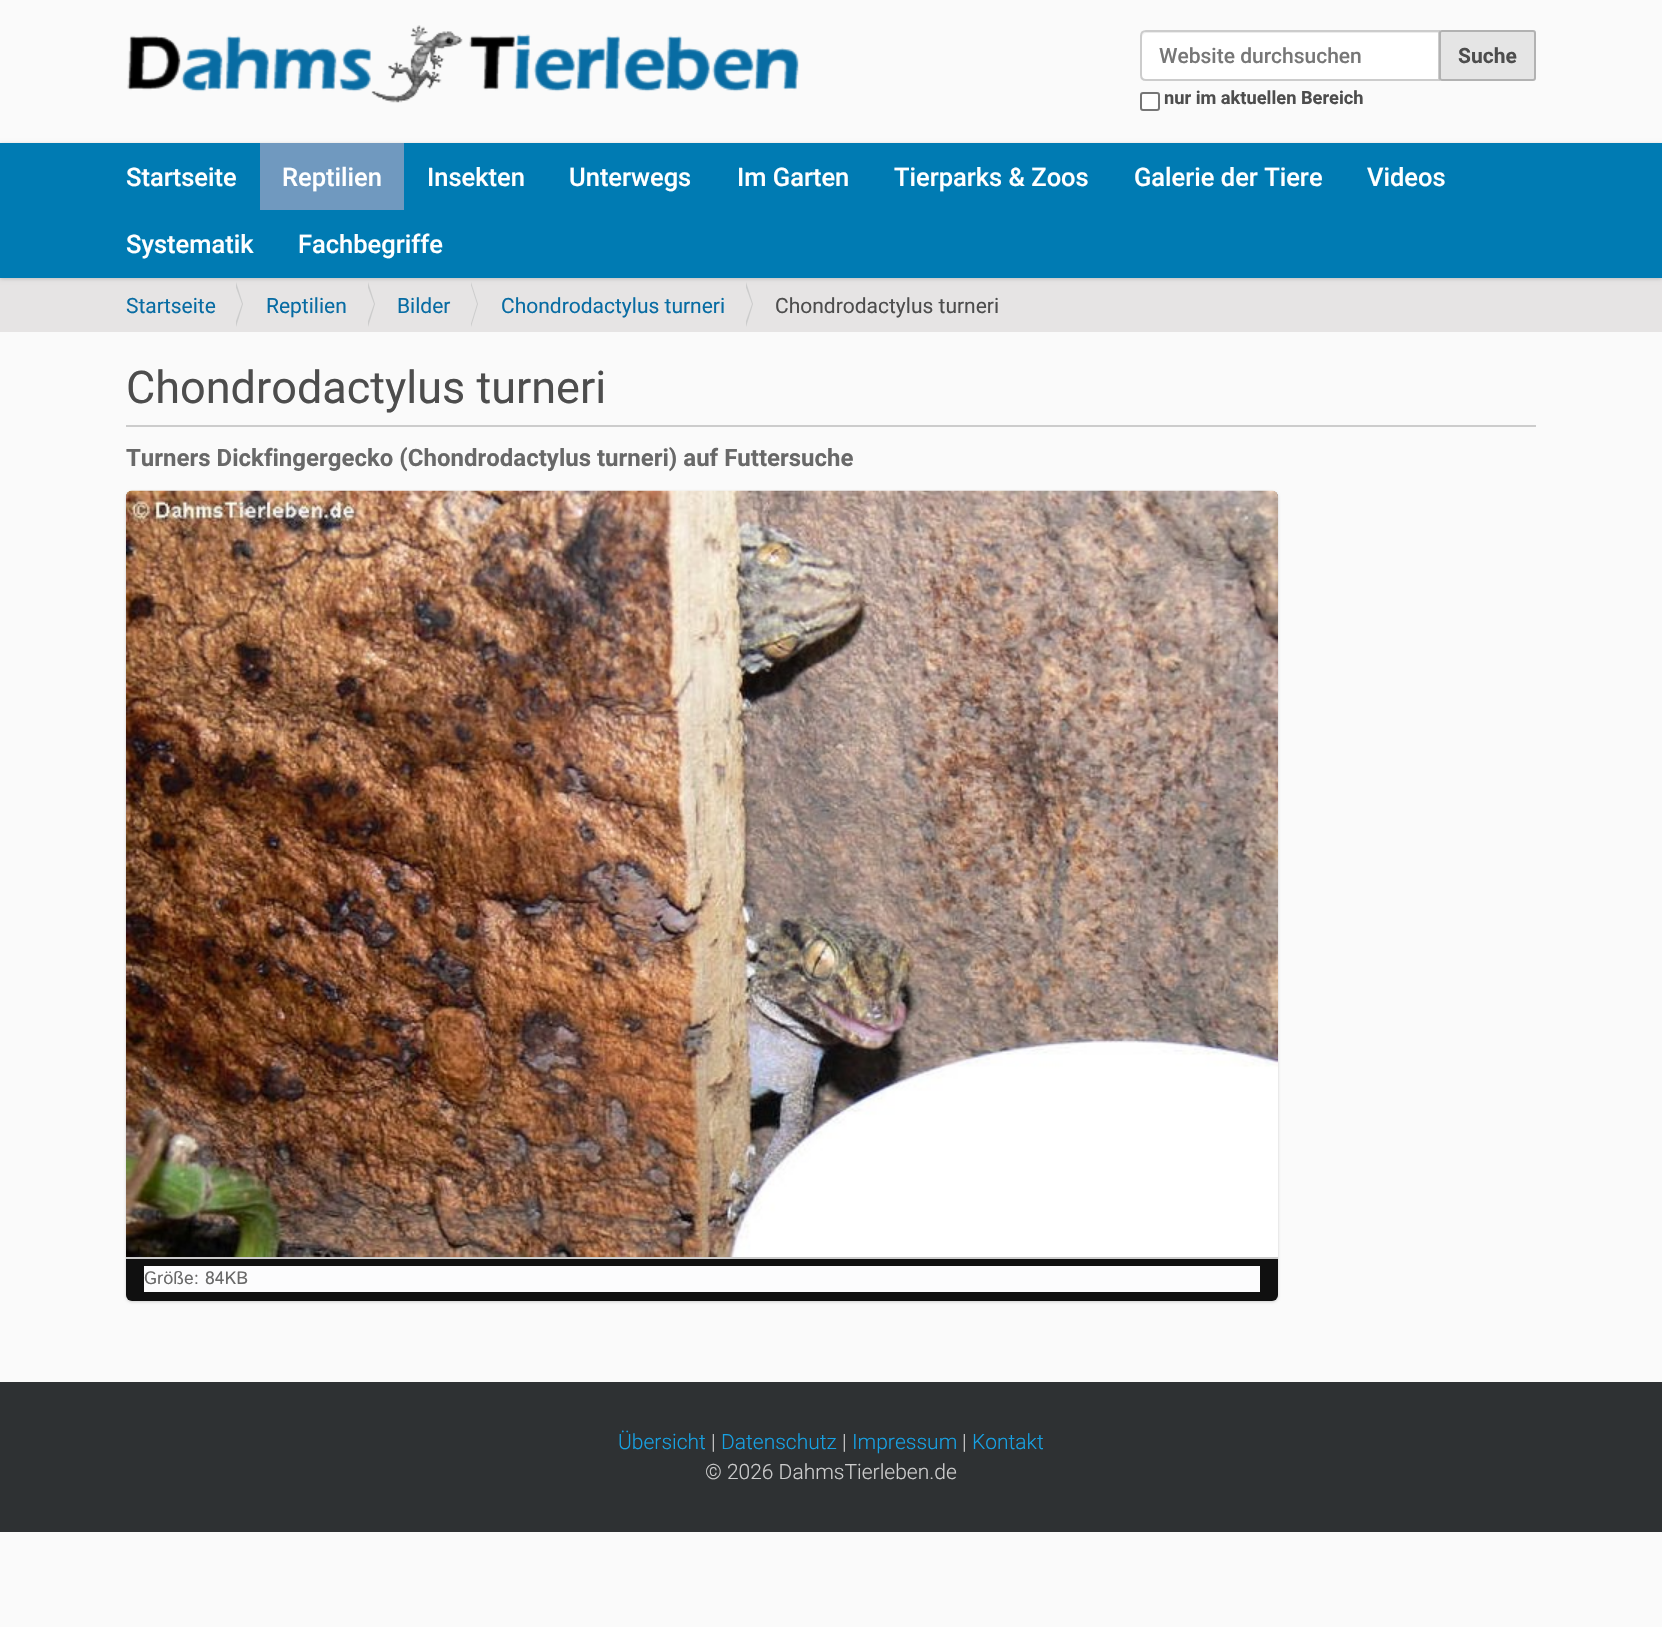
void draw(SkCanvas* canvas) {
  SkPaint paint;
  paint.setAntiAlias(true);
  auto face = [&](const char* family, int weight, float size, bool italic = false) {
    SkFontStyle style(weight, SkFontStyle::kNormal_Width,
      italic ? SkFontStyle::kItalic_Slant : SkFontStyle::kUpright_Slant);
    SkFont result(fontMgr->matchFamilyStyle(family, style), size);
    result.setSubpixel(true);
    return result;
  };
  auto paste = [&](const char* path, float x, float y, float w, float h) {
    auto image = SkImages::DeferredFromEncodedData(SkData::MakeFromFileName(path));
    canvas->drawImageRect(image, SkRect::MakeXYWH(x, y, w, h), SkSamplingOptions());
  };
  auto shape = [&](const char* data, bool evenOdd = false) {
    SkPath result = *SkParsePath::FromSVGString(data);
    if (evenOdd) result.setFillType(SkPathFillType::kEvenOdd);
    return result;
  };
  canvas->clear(0xfffafafa);
  paste("img/1.png", 127, 25, 672, 78);
  paint.setColor(0xffffffff);
  canvas->drawPath(shape("M1146 30H1440V81H1146C1142.5 81 1140 78.5 1140 75V36C1140 32.5 1142.5 30 1146 30Z"), paint);
  paint.setColor(0xffececec);
  canvas->drawPath(shape("M1146 33H1438V80H1439V32H1147C1144 32 1142 34 1142 37V38C1142 35 1144 33 1146 33Z"), paint);
  paint.setStroke(true);
  paint.setStrokeWidth(2);
  paint.setColor(0xffcccccc);
  canvas->drawPath(shape("M1146 31H1439V80H1146C1143 80 1141 78 1141 75V36C1141 33 1143 31 1146 31Z"), paint);
  paint.setStroke(false);
  paint.setColor(0xffe5e5e5);
  canvas->drawRoundRect(SkRect::MakeXYWH(1440, 31, 95, 49), 2, 2, paint);
  paint.setStroke(true);
  paint.setColor(0xffb2b2b2);
  canvas->drawRoundRect(SkRect::MakeXYWH(1440, 31, 95, 49), 2, 2, paint);
  paint.setStroke(false);
  paint.setColor(0xffffffff);
  canvas->drawRoundRect(SkRect::MakeXYWH(1141, 93, 18, 17), 2, 2, paint);
  paint.setStroke(true);
  paint.setColor(0xff767676);
  canvas->drawRoundRect(SkRect::MakeXYWH(1141, 93, 18, 17), 2, 2, paint);
  paint.setStroke(false);
  paint.setColor(0xffe6e4e4);
  canvas->drawRect(SkRect::MakeXYWH(0, 278, 1662, 54), paint);
  paint.setColor(0x2b000000);
  paint.setMaskFilter(SkMaskFilter::MakeBlur(kNormal_SkBlurStyle, 2));
  canvas->drawRect(SkRect::MakeXYWH(0, 144, 1662, 135), paint);
  paint.setMaskFilter(nullptr);
  paint.setColor(0xff007bb3);
  canvas->drawRect(SkRect::MakeXYWH(0, 143, 1662, 135), paint);
  paint.setColor(0xff7099bf);
  canvas->drawRect(SkRect::MakeXYWH(260, 143, 144, 67), paint);
  paint.setColor(0xffcccccc);
  canvas->drawPath(shape("M236 327V282L243 304Z"), paint);
  paint.setColor(0xffe6e4e4);
  canvas->drawPath(shape("M234 327V282L242 304Z"), paint);
  paint.setColor(0xffcccccc);
  canvas->drawPath(shape("M368 327V282L375 304Z"), paint);
  paint.setColor(0xffe6e4e4);
  canvas->drawPath(shape("M366 327V282L374 304Z"), paint);
  paint.setColor(0xffcccccc);
  canvas->drawPath(shape("M471 327V282L478 304Z"), paint);
  paint.setColor(0xffe6e4e4);
  canvas->drawPath(shape("M470 327V282L477 304Z"), paint);
  paint.setColor(0xffcccccc);
  canvas->drawPath(shape("M746 327V282L753 304Z"), paint);
  paint.setColor(0xffe6e4e4);
  canvas->drawPath(shape("M744 327V282L752 304Z"), paint);
  paint.setColor(0xffcccccc);
  canvas->drawRect(SkRect::MakeXYWH(126, 425, 1410, 2), paint);
  paint.setColor(0x2b000000);
  paint.setMaskFilter(SkMaskFilter::MakeBlur(kNormal_SkBlurStyle, 1.5f));
  canvas->drawRoundRect(SkRect::MakeXYWH(126, 492, 1152, 810), 6, 6, paint);
  paint.setMaskFilter(nullptr);
  paint.setColor(0xff101010);
  canvas->drawRoundRect(SkRect::MakeXYWH(126, 491, 1152, 810), 6, 6, paint);
  paint.setColor(0xffcccccc);
  canvas->drawRect(SkRect::MakeXYWH(126, 1257, 1152, 2), paint);
  paste("img/2.png", 126, 490, 1152, 767);
  paint.setColor(0xfffcfcfd);
  canvas->drawRect(SkRect::MakeXYWH(144, 1266, 1116, 26), paint);
  paint.setColor(0xff2e3133);
  canvas->drawRect(SkRect::MakeXYWH(0, 1382, 1662, 150), paint);
  auto f0 = face("Roboto", 500, 21);
  paint.setColor(0xff777777);
  canvas->drawString("Website durchsuchen", 1159, 63, f0, paint);
  auto f1 = face("Roboto", 700, 21);
  paint.setColor(0xff4d4d4d);
  canvas->drawString("Suche", 1458, 63, f1, paint);
  auto f2 = face("Roboto", 700, 18.25f);
  canvas->drawString("nur im aktuellen Bereich", 1164, 104, f2, paint);
  auto f3 = face("Roboto", 500, 25.5f);
  paint.setColor(0xffffffff);
  {
    const struct { const char* s; float x, y; } items[] = {
      {"Startseite", 126, 186},
      {"Reptilien", 282, 186},
      {"Insekten", 427, 186},
      {"Unterwegs", 569, 186},
      {"Im Garten", 737, 186},
      {"Tierparks & Zoos", 894, 186},
      {"Galerie der Tiere", 1134, 186},
      {"Videos", 1367, 186},
      {"Systematik", 126, 253},
      {"Fachbegriffe", 298, 253},
    };
    for (auto [s, x, y] : items) {
      canvas->drawString(s, x, y, f3, paint);
    }
  }
  auto f4 = face("Roboto", 400, 21);
  paint.setColor(0xff086ca3);
  {
    const struct { const char* s; float x, y; } items[] = {
      {"Startseite", 126, 313},
      {"Reptilien", 266, 313},
      {"Bilder", 397, 313},
      {"Chondrodactylus turneri", 501, 313},
    };
    for (auto [s, x, y] : items) {
      canvas->drawString(s, x, y, f4, paint);
    }
  }
  paint.setColor(0xff4d4d4d);
  canvas->drawString("Chondrodactylus turneri", 775, 313, f4, paint);
  auto f5 = face("Roboto", 400, 45);
  canvas->drawString("Chondrodactylus turneri", 126, 403, f5, paint);
  auto f6 = face("Roboto", 700, 24);
  paint.setColor(0xff696969);
  canvas->drawString("Turners Dickfingergecko (Chondrodactylus turneri) auf Futtersuche", 126, 466, f6, paint);
  auto f7 = face("Istok Web", 400, 18);
  canvas->drawString("Größe: 84KB", 144, 1284, f7, paint);
  auto f8 = face("Roboto", 300, 21);
  paint.setColor(0xff16a1e3);
  canvas->drawString("Übersicht", 618, 1449, f8, paint);
  paint.setColor(0xffcccccc);
  canvas->drawString("|", 711, 1449, f8, paint);
  paint.setColor(0xff16a1e3);
  canvas->drawString("Datenschutz", 721, 1449, f8, paint);
  paint.setColor(0xffcccccc);
  canvas->drawString("|", 842, 1449, f8, paint);
  paint.setColor(0xff16a1e3);
  canvas->drawString("Impressum", 852, 1449, f8, paint);
  paint.setColor(0xffcccccc);
  canvas->drawString("|", 962, 1449, f8, paint);
  paint.setColor(0xff16a1e3);
  canvas->drawString("Kontakt", 972, 1449, f8, paint);
  paint.setColor(0xffcccccc);
  canvas->drawString("© 2026 DahmsTierleben.de", 705, 1479, f8, paint);
}
